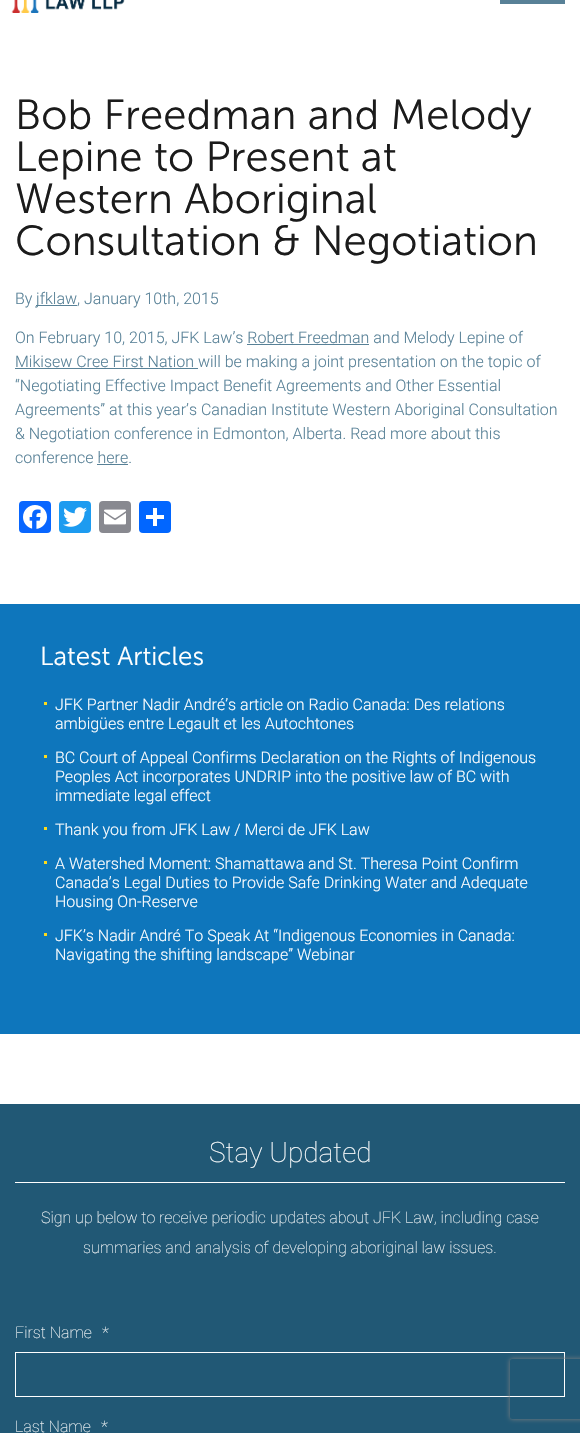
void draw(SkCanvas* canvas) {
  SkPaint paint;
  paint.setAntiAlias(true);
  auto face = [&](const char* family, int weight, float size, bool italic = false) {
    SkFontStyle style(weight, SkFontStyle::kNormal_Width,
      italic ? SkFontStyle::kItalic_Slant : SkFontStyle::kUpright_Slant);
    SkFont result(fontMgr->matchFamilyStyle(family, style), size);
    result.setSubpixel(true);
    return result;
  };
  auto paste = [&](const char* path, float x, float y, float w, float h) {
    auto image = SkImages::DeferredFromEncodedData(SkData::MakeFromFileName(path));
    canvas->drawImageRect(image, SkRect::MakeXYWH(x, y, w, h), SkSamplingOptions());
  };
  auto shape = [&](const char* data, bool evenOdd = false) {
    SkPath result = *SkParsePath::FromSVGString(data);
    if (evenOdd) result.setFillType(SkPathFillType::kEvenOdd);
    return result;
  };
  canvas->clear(0xffffffff);
  paste("img/1.png", 11, 0, 114, 13);
  {
    const struct { float x, y, w, h; SkColor color; } items[] = {
      {500, 0, 65, 4, 0xff588197},
      {36, 305, 41, 1, 0xff588197},
      {247, 344, 122, 1, 0xff588197},
      {15, 368, 183, 1, 0xff588197},
      {97, 464, 31, 1, 0xff588197},
    };
    for (auto [x, y, w, h, color] : items) {
      paint.setColor(color);
      canvas->drawRect(SkRect::MakeXYWH(x, y, w, h), paint);
    }
  }
  paint.setColor(0xff0866ff);
  canvas->drawRoundRect(SkRect::MakeXYWH(19, 501, 32, 32), 4, 4, paint);
  paste("img/2.png", 23, 505, 24, 24);
  paint.setColor(0xff1d9bf0);
  canvas->drawRoundRect(SkRect::MakeXYWH(59, 501, 32, 32), 4, 4, paint);
  paste("img/3.png", 63, 507, 24, 20);
  paint.setColor(0xff888990);
  canvas->drawRoundRect(SkRect::MakeXYWH(99, 501, 32, 32), 4, 4, paint);
  paste("img/4.png", 104, 509, 22, 16);
  paint.setColor(0xff0166ff);
  canvas->drawRoundRect(SkRect::MakeXYWH(139, 501, 32, 32), 4, 4, paint);
  {
    const struct { float x, y, w, h; SkColor color; } items[] = {
      {153, 508, 4, 18, 0xffffffff},
      {146, 515, 18, 4, 0xffffffff},
      {0, 604, 580, 430, 0xff0e76bc},
      {44, 702, 3, 3, 0xfffcda1c},
      {44, 755, 3, 3, 0xfffcda1c},
      {44, 827, 3, 3, 0xfffcda1c},
      {44, 861, 3, 3, 0xfffcda1c},
      {44, 933, 3, 3, 0xfffcda1c},
      {0, 1104, 580, 329, 0xff215875},
      {15, 1182, 550, 1, 0xffffffff},
    };
    for (auto [x, y, w, h, color] : items) {
      paint.setColor(color);
      canvas->drawRect(SkRect::MakeXYWH(x, y, w, h), paint);
    }
  }
  paint.setStroke(true);
  paint.setStrokeWidth(1);
  canvas->drawRect(SkRect::MakeXYWH(15.5f, 1352.5f, 549, 44), paint);
  canvas->save();
  canvas->clipPath(shape("M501 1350H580V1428H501ZM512 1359H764C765 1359 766 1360 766 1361V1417C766 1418 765 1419 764 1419H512C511 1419 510 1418 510 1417V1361C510 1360 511 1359 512 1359Z", true), true);
  paint.setStroke(false);
  paint.setColor(0xff808080);
  paint.setMaskFilter(SkMaskFilter::MakeBlur(kNormal_SkBlurStyle, 2.5f));
  canvas->drawRoundRect(SkRect::MakeXYWH(510, 1359, 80, 60), 2, 2, paint);
  paint.setMaskFilter(nullptr);
  canvas->restore();
  auto f0 = face("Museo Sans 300", 300, 42);
  paint.setColor(0xff1b1b1b);
  {
    const struct { const char* s; float x, y; } items[] = {
      {"Bob Freedman and Melody", 15, 129},
      {"Lepine to Present at", 15, 171},
      {"Western Aboriginal", 15, 213},
      {"Consultation & Negotiation", 15, 255},
    };
    for (auto [s, x, y] : items) {
      canvas->drawString(s, x, y, f0, paint);
    }
  }
  auto f1 = face("Roboto", 300, 16);
  paint.setColor(0xff588197);
  {
    const struct { const char* s; float x, y; } items[] = {
      {"By", 15, 304},
      {"jfklaw, January 10th, 2015", 36, 304},
      {"On February 10, 2015, JFK Law’s Robert Freedman and Melody Lepine of", 15, 343},
      {"Mikisew Cree First Nation will be making a joint presentation on the topic of", 15, 367},
      {"“Negotiating Effective Impact Benefit Agreements and Other Essential", 15, 391},
      {"Agreements” at this year’s Canadian Institute Western Aboriginal Consultation", 15, 415},
      {"& Negotiation conference in Edmonton, Alberta. Read more about this", 15, 439},
      {"conference here.", 15, 463},
    };
    for (auto [s, x, y] : items) {
      canvas->drawString(s, x, y, f1, paint);
    }
  }
  auto f2 = face("Museo Sans 300", 300, 26);
  paint.setColor(0xffffffff);
  canvas->drawString("Latest Articles", 40, 665, f2, paint);
  {
    const struct { const char* s; float x, y; } items[] = {
      {"JFK Partner Nadir André’s article on Radio Canada: Des relations", 55, 710},
      {"ambigües entre Legault et les Autochtones", 55, 729},
      {"BC Court of Appeal Confirms Declaration on the Rights of Indigenous", 55, 763},
      {"Peoples Act incorporates UNDRIP into the positive law of BC with", 55, 782},
      {"immediate legal effect", 55, 801},
      {"Thank you from JFK Law / Merci de JFK Law", 55, 835},
      {"A Watershed Moment: Shamattawa and St. Theresa Point Confirm", 55, 869},
      {"Canada’s Legal Duties to Provide Safe Drinking Water and Adequate", 55, 888},
      {"Housing On-Reserve", 55, 907},
      {"JFK’s Nadir André To Speak At “Indigenous Economies in Canada:", 55, 941},
      {"Navigating the shifting landscape” Webinar", 55, 960},
    };
    for (auto [s, x, y] : items) {
      canvas->drawString(s, x, y, f1, paint);
    }
  }
  auto f3 = face("Roboto", 100, 28);
  canvas->drawString("Stay Updated", 209, 1162, f3, paint);
  auto f4 = face("Roboto", 100, 16);
  {
    const struct { const char* s; float x, y; } items[] = {
      {"Sign up below to receive periodic updates about JFK Law, including case", 41, 1223},
      {"summaries and analysis of developing aboriginal law issues.", 83, 1253},
      {"First Name", 15, 1338},
      {"*", 102, 1338},
      {"Last Name", 15, 1432},
      {"*", 101, 1432},
    };
    for (auto [s, x, y] : items) {
      canvas->drawString(s, x, y, f4, paint);
    }
  }
}
